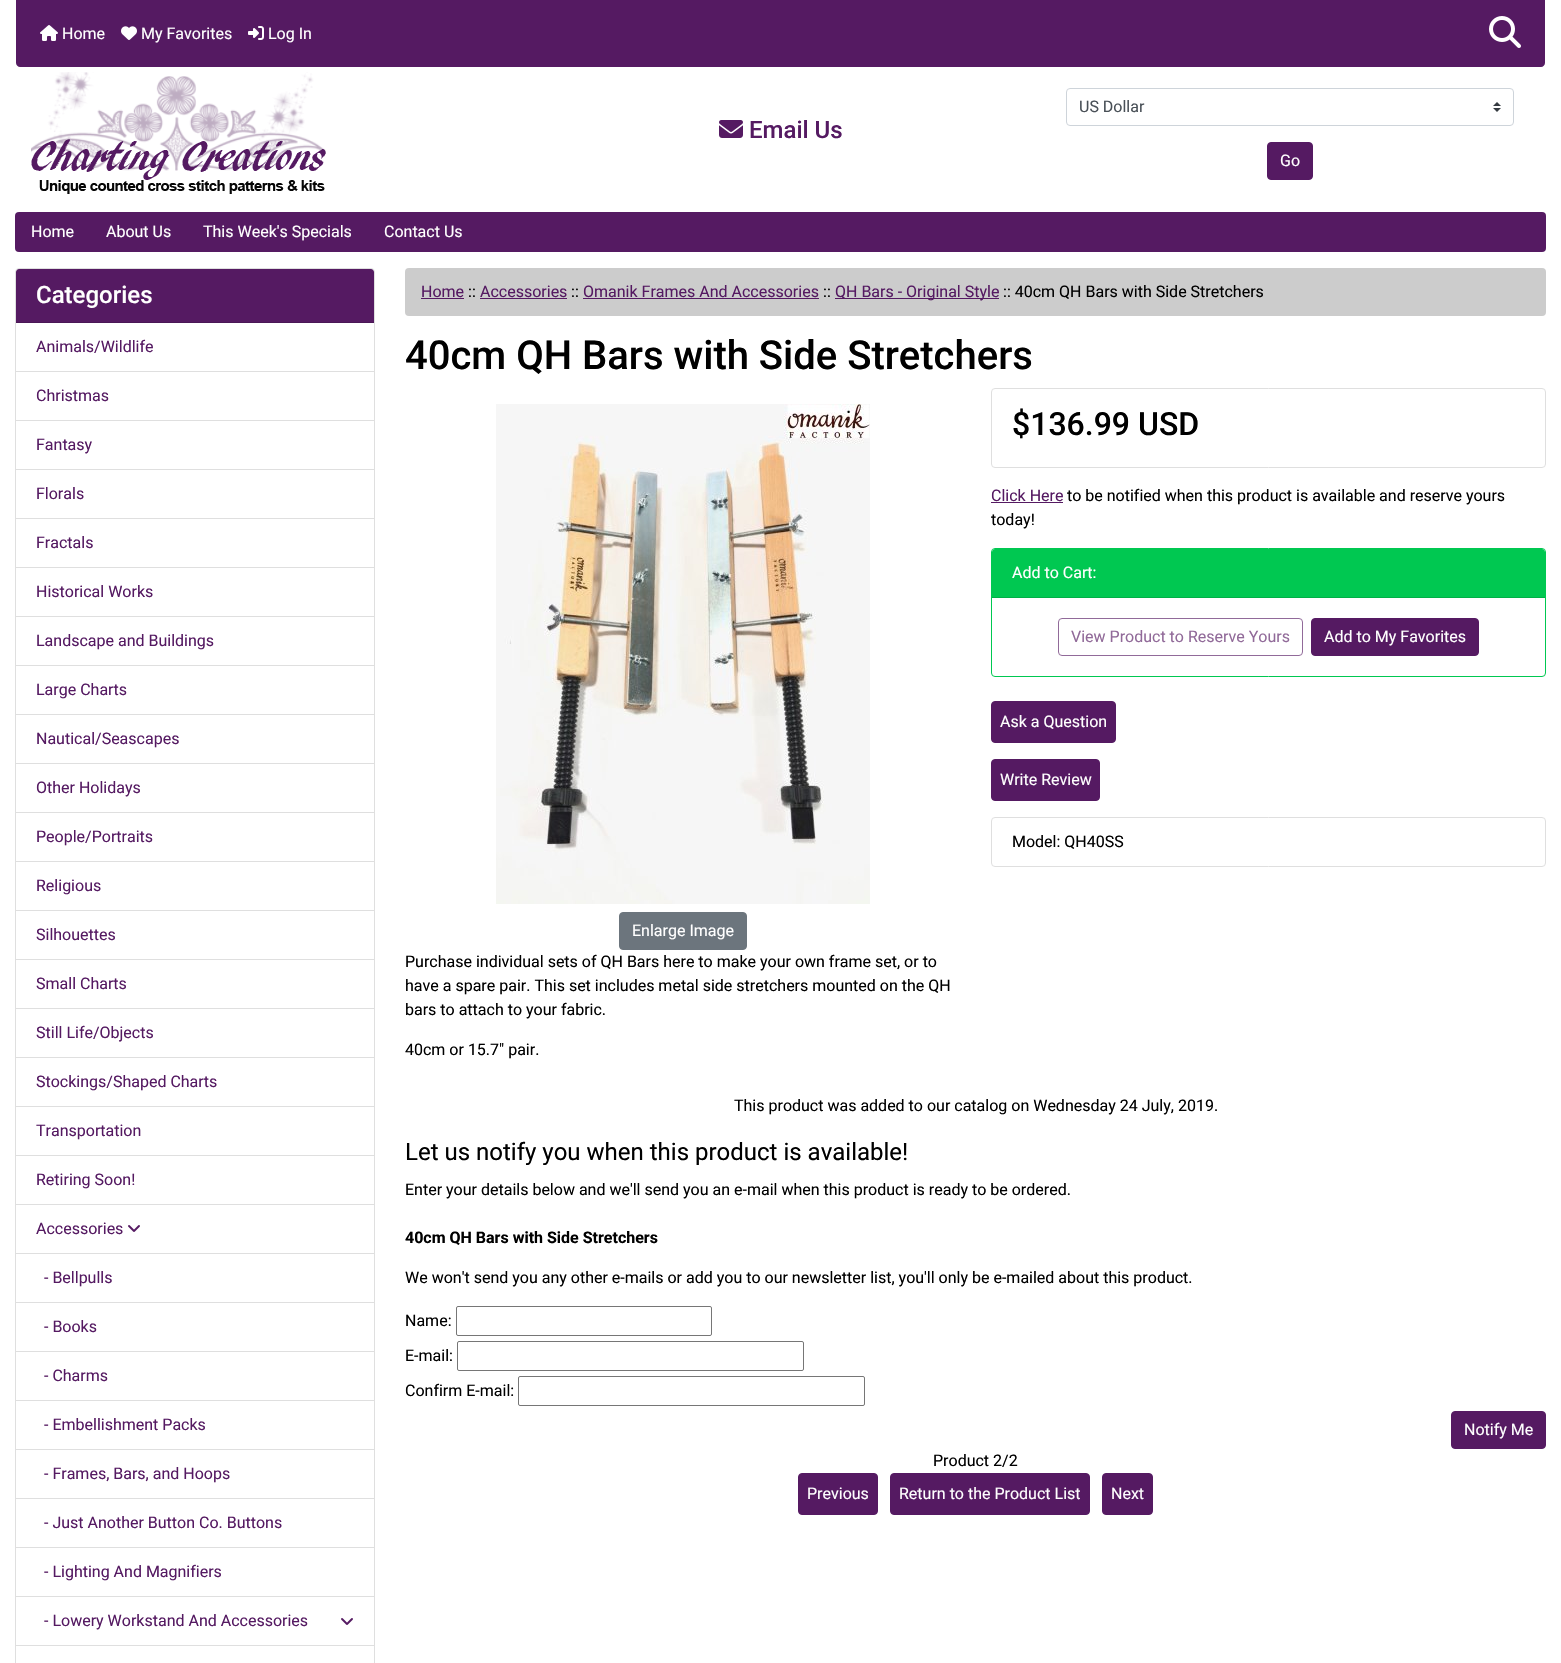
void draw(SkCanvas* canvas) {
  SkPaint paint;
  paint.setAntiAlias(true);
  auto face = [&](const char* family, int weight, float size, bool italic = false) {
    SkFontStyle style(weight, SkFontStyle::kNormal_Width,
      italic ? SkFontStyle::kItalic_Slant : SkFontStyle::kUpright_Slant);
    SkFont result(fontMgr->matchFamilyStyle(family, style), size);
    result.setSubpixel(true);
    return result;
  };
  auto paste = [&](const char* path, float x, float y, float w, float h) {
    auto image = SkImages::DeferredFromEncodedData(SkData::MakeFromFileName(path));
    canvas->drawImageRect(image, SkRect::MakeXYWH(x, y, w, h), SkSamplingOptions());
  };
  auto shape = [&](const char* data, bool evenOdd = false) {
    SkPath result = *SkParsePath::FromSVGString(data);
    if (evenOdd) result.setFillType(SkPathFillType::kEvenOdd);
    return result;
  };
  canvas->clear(0xffffffff);
  paint.setColor(0xff551a62);
  canvas->drawPath(shape("M16 0H1545V63C1545 65 1543 67 1541 67H20C18 67 16 65 16 63Z"), paint);
  paste("img/1.png", 40, 25, 18, 16);
  paste("img/2.png", 121, 26, 16, 14);
  paste("img/3.png", 248, 26, 16, 14);
  paste("img/4.png", 1489, 16, 32, 32);
  paste("img/5.png", 31, 72, 295, 122);
  paste("img/6.png", 719, 120, 24, 18);
  paste("img/7.png", 1493, 102, 8, 10);
  paint.setStroke(true);
  paint.setStrokeWidth(1);
  paint.setColor(0xffced4da);
  canvas->drawRoundRect(SkRect::MakeXYWH(1066.5f, 88.5f, 447, 37), 3.5f, 3.5f, paint);
  paint.setStroke(false);
  paint.setColor(0xff551a62);
  canvas->drawRoundRect(SkRect::MakeXYWH(1267.5f, 142.5f, 45, 37), 3.5f, 3.5f, paint);
  paint.setStroke(true);
  canvas->drawRoundRect(SkRect::MakeXYWH(1267.5f, 142.5f, 45, 37), 3.5f, 3.5f, paint);
  paint.setStroke(false);
  canvas->drawRoundRect(SkRect::MakeXYWH(15, 212, 1531, 40), 4, 4, paint);
  paint.setStroke(true);
  paint.setColor(0xffdfdfdf);
  canvas->drawRoundRect(SkRect::MakeXYWH(15.5f, 268.5f, 359, 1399), 3.5f, 3.5f, paint);
  paint.setStroke(false);
  paint.setColor(0xff551a62);
  canvas->drawPath(shape("M19 269H371C372.5 269 374 270.5 374 272V323H16V272C16 270.5 17.5 269 19 269Z"), paint);
  {
    const struct { float x, y, w, h; SkColor color; } items[] = {
      {16, 322, 358, 1, 0xff4a1756},
      {16, 371, 358, 1, 0xffdfdfdf},
      {16, 420, 358, 1, 0xffdfdfdf},
      {16, 469, 358, 1, 0xffdfdfdf},
      {16, 518, 358, 1, 0xffdfdfdf},
      {16, 567, 358, 1, 0xffdfdfdf},
      {16, 616, 358, 1, 0xffdfdfdf},
      {16, 665, 358, 1, 0xffdfdfdf},
      {16, 714, 358, 1, 0xffdfdfdf},
      {16, 763, 358, 1, 0xffdfdfdf},
      {16, 812, 358, 1, 0xffdfdfdf},
      {16, 861, 358, 1, 0xffdfdfdf},
      {16, 910, 358, 1, 0xffdfdfdf},
      {16, 959, 358, 1, 0xffdfdfdf},
      {16, 1008, 358, 1, 0xffdfdfdf},
      {16, 1057, 358, 1, 0xffdfdfdf},
      {16, 1106, 358, 1, 0xffdfdfdf},
      {16, 1155, 358, 1, 0xffdfdfdf},
      {16, 1204, 358, 1, 0xffdfdfdf},
      {16, 1253, 358, 1, 0xffdfdfdf},
    };
    for (auto [x, y, w, h, color] : items) {
      paint.setColor(color);
      canvas->drawRect(SkRect::MakeXYWH(x, y, w, h), paint);
    }
  }
  paste("img/8.png", 128, 1225, 12, 7);
  {
    const struct { float x, y, w, h; SkColor color; } items[] = {
      {16, 1302, 358, 1, 0xffdfdfdf},
      {16, 1351, 358, 1, 0xffdfdfdf},
      {16, 1400, 358, 1, 0xffdfdfdf},
      {16, 1449, 358, 1, 0xffdfdfdf},
      {16, 1498, 358, 1, 0xffdfdfdf},
      {16, 1547, 358, 1, 0xffdfdfdf},
      {16, 1596, 358, 1, 0xffdfdfdf},
      {16, 1645, 358, 1, 0xffdfdfdf},
    };
    for (auto [x, y, w, h, color] : items) {
      paint.setColor(color);
      canvas->drawRect(SkRect::MakeXYWH(x, y, w, h), paint);
    }
  }
  paste("img/8.png", 341, 1618, 12, 7);
  paint.setColor(0xffcccccc);
  canvas->drawRoundRect(SkRect::MakeXYWH(405, 268, 1141, 48), 4, 4, paint);
  {
    const struct { float x, y, w, h; SkColor color; } items[] = {
      {421, 298, 43, 1, 0xff551a62},
      {480, 298, 87, 1, 0xff551a62},
      {583, 298, 236, 1, 0xff551a62},
      {835, 298, 164, 1, 0xff551a62},
    };
    for (auto [x, y, w, h, color] : items) {
      paint.setColor(color);
      canvas->drawRect(SkRect::MakeXYWH(x, y, w, h), paint);
    }
  }
  paint.setStroke(true);
  paint.setColor(0xffdfdfdf);
  canvas->drawRoundRect(SkRect::MakeXYWH(991.5f, 388.5f, 554, 79), 3.5f, 3.5f, paint);
  paint.setStroke(false);
  paint.setColor(0xff551a62);
  canvas->drawRect(SkRect::MakeXYWH(991, 502, 72, 1), paint);
  paint.setStroke(true);
  paint.setColor(0xff00c851);
  canvas->drawRoundRect(SkRect::MakeXYWH(991.5f, 548.5f, 554, 128), 3.5f, 3.5f, paint);
  paint.setStroke(false);
  canvas->drawPath(shape("M995 549H1542C1543.5 549 1545 550.5 1545 552V598H992V552C992 550.5 993.5 549 995 549Z"), paint);
  paint.setColor(0xff00af47);
  canvas->drawRect(SkRect::MakeXYWH(992, 597, 553, 1), paint);
  paint.setStroke(true);
  paint.setColor(0xff916a99);
  canvas->drawRoundRect(SkRect::MakeXYWH(1058.5f, 618.5f, 244, 37), 3.5f, 3.5f, paint);
  paint.setStroke(false);
  paint.setColor(0xff551a62);
  canvas->drawRoundRect(SkRect::MakeXYWH(1311.5f, 618.5f, 167, 37), 3.5f, 3.5f, paint);
  paint.setStroke(true);
  canvas->drawRoundRect(SkRect::MakeXYWH(1311.5f, 618.5f, 167, 37), 3.5f, 3.5f, paint);
  paint.setStroke(false);
  canvas->drawRoundRect(SkRect::MakeXYWH(991.5f, 701.5f, 124, 41), 3.5f, 3.5f, paint);
  paint.setStroke(true);
  canvas->drawRoundRect(SkRect::MakeXYWH(991.5f, 701.5f, 124, 41), 3.5f, 3.5f, paint);
  paint.setStroke(false);
  canvas->drawRoundRect(SkRect::MakeXYWH(991.5f, 759.5f, 108, 41), 3.5f, 3.5f, paint);
  paint.setStroke(true);
  canvas->drawRoundRect(SkRect::MakeXYWH(991.5f, 759.5f, 108, 41), 3.5f, 3.5f, paint);
  paint.setColor(0xffdfdfdf);
  canvas->drawRoundRect(SkRect::MakeXYWH(991.5f, 817.5f, 554, 49), 3.5f, 3.5f, paint);
  paste("img/9.png", 496, 404, 374, 500);
  paint.setStroke(false);
  paint.setColor(0xff6c757d);
  canvas->drawRoundRect(SkRect::MakeXYWH(619.5f, 912.5f, 127, 37), 3.5f, 3.5f, paint);
  paint.setStroke(true);
  canvas->drawRoundRect(SkRect::MakeXYWH(619.5f, 912.5f, 127, 37), 3.5f, 3.5f, paint);
  paint.setColor(0xff767676);
  canvas->drawRoundRect(SkRect::MakeXYWH(456.5f, 1306.5f, 255, 29), 1.5f, 1.5f, paint);
  canvas->drawRoundRect(SkRect::MakeXYWH(457.5f, 1341.5f, 346, 29), 1.5f, 1.5f, paint);
  canvas->drawRoundRect(SkRect::MakeXYWH(518.5f, 1376.5f, 346, 29), 1.5f, 1.5f, paint);
  paint.setStroke(false);
  paint.setColor(0xff551a62);
  canvas->drawRoundRect(SkRect::MakeXYWH(1451.5f, 1411.5f, 94, 37), 3.5f, 3.5f, paint);
  paint.setStroke(true);
  canvas->drawRoundRect(SkRect::MakeXYWH(1451.5f, 1411.5f, 94, 37), 3.5f, 3.5f, paint);
  paint.setStroke(false);
  canvas->drawRoundRect(SkRect::MakeXYWH(798.5f, 1473.5f, 79, 41), 3.5f, 3.5f, paint);
  paint.setStroke(true);
  canvas->drawRoundRect(SkRect::MakeXYWH(798.5f, 1473.5f, 79, 41), 3.5f, 3.5f, paint);
  paint.setStroke(false);
  canvas->drawRoundRect(SkRect::MakeXYWH(890.5f, 1473.5f, 199, 41), 3.5f, 3.5f, paint);
  paint.setStroke(true);
  canvas->drawRoundRect(SkRect::MakeXYWH(890.5f, 1473.5f, 199, 41), 3.5f, 3.5f, paint);
  paint.setStroke(false);
  canvas->drawRoundRect(SkRect::MakeXYWH(1102.5f, 1473.5f, 50, 41), 3.5f, 3.5f, paint);
  paint.setStroke(true);
  canvas->drawRoundRect(SkRect::MakeXYWH(1102.5f, 1473.5f, 50, 41), 3.5f, 3.5f, paint);
  auto f0 = face("Roboto", 400, 16);
  paint.setStroke(false);
  paint.setColor(0xffffffff);
  {
    const struct { const char* s; float x, y; } items[] = {
      {"Home", 62, 39},
      {"My Favorites", 141, 39},
      {"Log In", 268, 39},
    };
    for (auto [s, x, y] : items) {
      canvas->drawString(s, x, y, f0, paint);
    }
  }
  auto f1 = face("Roboto", 500, 24);
  paint.setColor(0xff551a62);
  canvas->drawString("Email Us", 749, 138, f1, paint);
  paint.setColor(0xff495057);
  canvas->drawString("US Dollar", 1079, 112, f0, paint);
  paint.setColor(0xffffffff);
  {
    const struct { const char* s; float x, y; } items[] = {
      {"Go", 1280, 166},
      {"Home", 31, 237},
      {"About Us", 106, 237},
      {"This Week's Specials", 203, 237},
      {"Contact Us", 384, 237},
    };
    for (auto [s, x, y] : items) {
      canvas->drawString(s, x, y, f0, paint);
    }
  }
  canvas->drawString("Categories", 36, 303, f1, paint);
  paint.setColor(0xff551a62);
  {
    const struct { const char* s; float x, y; } items[] = {
      {"Animals/Wildlife", 36, 352},
      {"Christmas", 36, 401},
      {"Fantasy", 36, 450},
      {"Florals", 36, 499},
      {"Fractals", 36, 548},
      {"Historical Works", 36, 597},
      {"Landscape and Buildings", 36, 646},
      {"Large Charts", 36, 695},
      {"Nautical/Seascapes", 36, 744},
      {"Other Holidays", 36, 793},
      {"People/Portraits", 36, 842},
      {"Religious", 36, 891},
      {"Silhouettes", 36, 940},
      {"Small Charts", 36, 989},
      {"Still Life/Objects", 36, 1038},
      {"Stockings/Shaped Charts", 36, 1087},
      {"Transportation", 36, 1136},
      {"Retiring Soon!", 36, 1185},
      {"Accessories", 36, 1234},
      {"- Bellpulls", 44, 1283},
      {"- Books", 44, 1332},
      {"- Charms", 44, 1381},
      {"- Embellishment Packs", 44, 1430},
      {"- Frames, Bars, and Hoops", 44, 1479},
      {"- Just Another Button Co. Buttons", 44, 1528},
      {"- Lighting And Magnifiers", 44, 1577},
      {"- Lowery Workstand And Accessories", 44, 1626},
      {"Home", 421, 297},
    };
    for (auto [s, x, y] : items) {
      canvas->drawString(s, x, y, f0, paint);
    }
  }
  paint.setColor(0xff000000);
  canvas->drawString("::", 468, 297, f0, paint);
  paint.setColor(0xff551a62);
  canvas->drawString("Accessories", 480, 297, f0, paint);
  paint.setColor(0xff000000);
  canvas->drawString("::", 571, 297, f0, paint);
  paint.setColor(0xff551a62);
  canvas->drawString("Omanik Frames And Accessories", 583, 297, f0, paint);
  paint.setColor(0xff000000);
  canvas->drawString("::", 823, 297, f0, paint);
  paint.setColor(0xff551a62);
  canvas->drawString("QH Bars - Original Style", 835, 297, f0, paint);
  paint.setColor(0xff000000);
  canvas->drawString(":: 40cm QH Bars with Side Stretchers", 1003, 297, f0, paint);
  auto f2 = face("Roboto", 500, 40);
  canvas->drawString("40cm QH Bars with Side Stretchers", 405, 369, f2, paint);
  auto f3 = face("Roboto", 500, 32);
  canvas->drawString("$136.99 USD", 1012, 435, f3, paint);
  paint.setColor(0xff551a62);
  canvas->drawString("Click Here", 991, 501, f0, paint);
  paint.setColor(0xff000000);
  canvas->drawString("to be notified when this product is available and reserve yours", 1067, 501, f0, paint);
  canvas->drawString("today!", 991, 525, f0, paint);
  paint.setColor(0xffffffff);
  canvas->drawString("Add to Cart:", 1012, 578, f0, paint);
  paint.setColor(0xff916a99);
  canvas->drawString("View Product to Reserve Yours", 1071, 642, f0, paint);
  paint.setColor(0xffffffff);
  {
    const struct { const char* s; float x, y; } items[] = {
      {"Add to My Favorites", 1324, 642},
      {"Ask a Question", 1000, 727},
      {"Write Review", 1000, 785},
    };
    for (auto [s, x, y] : items) {
      canvas->drawString(s, x, y, f0, paint);
    }
  }
  paint.setColor(0xff000000);
  canvas->drawString("Model: QH40SS", 1012, 847, f0, paint);
  paint.setColor(0xffffffff);
  canvas->drawString("Enlarge Image", 632, 936, f0, paint);
  paint.setColor(0xff000000);
  {
    const struct { const char* s; float x, y; } items[] = {
      {"Purchase individual sets of QH Bars here to make your own frame set, or to", 405, 967},
      {"have a spare pair. This set includes metal side stretchers mounted on the QH", 405, 991},
      {"bars to attach to your fabric.", 405, 1015},
      {"40cm or 15.7\" pair.", 405, 1055},
      {"This product was added to our catalog on Wednesday 24 July, 2019.", 734, 1111},
    };
    for (auto [s, x, y] : items) {
      canvas->drawString(s, x, y, f0, paint);
    }
  }
  auto f4 = face("Roboto", 400, 24);
  canvas->drawString("Let us notify you when this product is available!", 405, 1160, f4, paint);
  canvas->drawString("Enter your details below and we'll send you an e-mail when this product is ready to be ordered.", 405, 1195, f0, paint);
  auto f5 = face("Roboto", 700, 16);
  canvas->drawString("40cm QH Bars with Side Stretchers", 405, 1243, f5, paint);
  {
    const struct { const char* s; float x, y; } items[] = {
      {"We won't send you any other e-mails or add you to our newsletter list, you'll only be e-mailed about this product.", 405, 1283},
      {"Name:", 405, 1326},
      {"E-mail:", 405, 1361},
      {"Confirm E-mail:", 405, 1396},
    };
    for (auto [s, x, y] : items) {
      canvas->drawString(s, x, y, f0, paint);
    }
  }
  paint.setColor(0xffffffff);
  canvas->drawString("Notify Me", 1464, 1435, f0, paint);
  paint.setColor(0xff000000);
  canvas->drawString("Product 2/2", 933, 1466, f0, paint);
  paint.setColor(0xffffffff);
  {
    const struct { const char* s; float x, y; } items[] = {
      {"Previous", 807, 1499},
      {"Return to the Product List", 899, 1499},
      {"Next", 1111, 1499},
    };
    for (auto [s, x, y] : items) {
      canvas->drawString(s, x, y, f0, paint);
    }
  }
}
